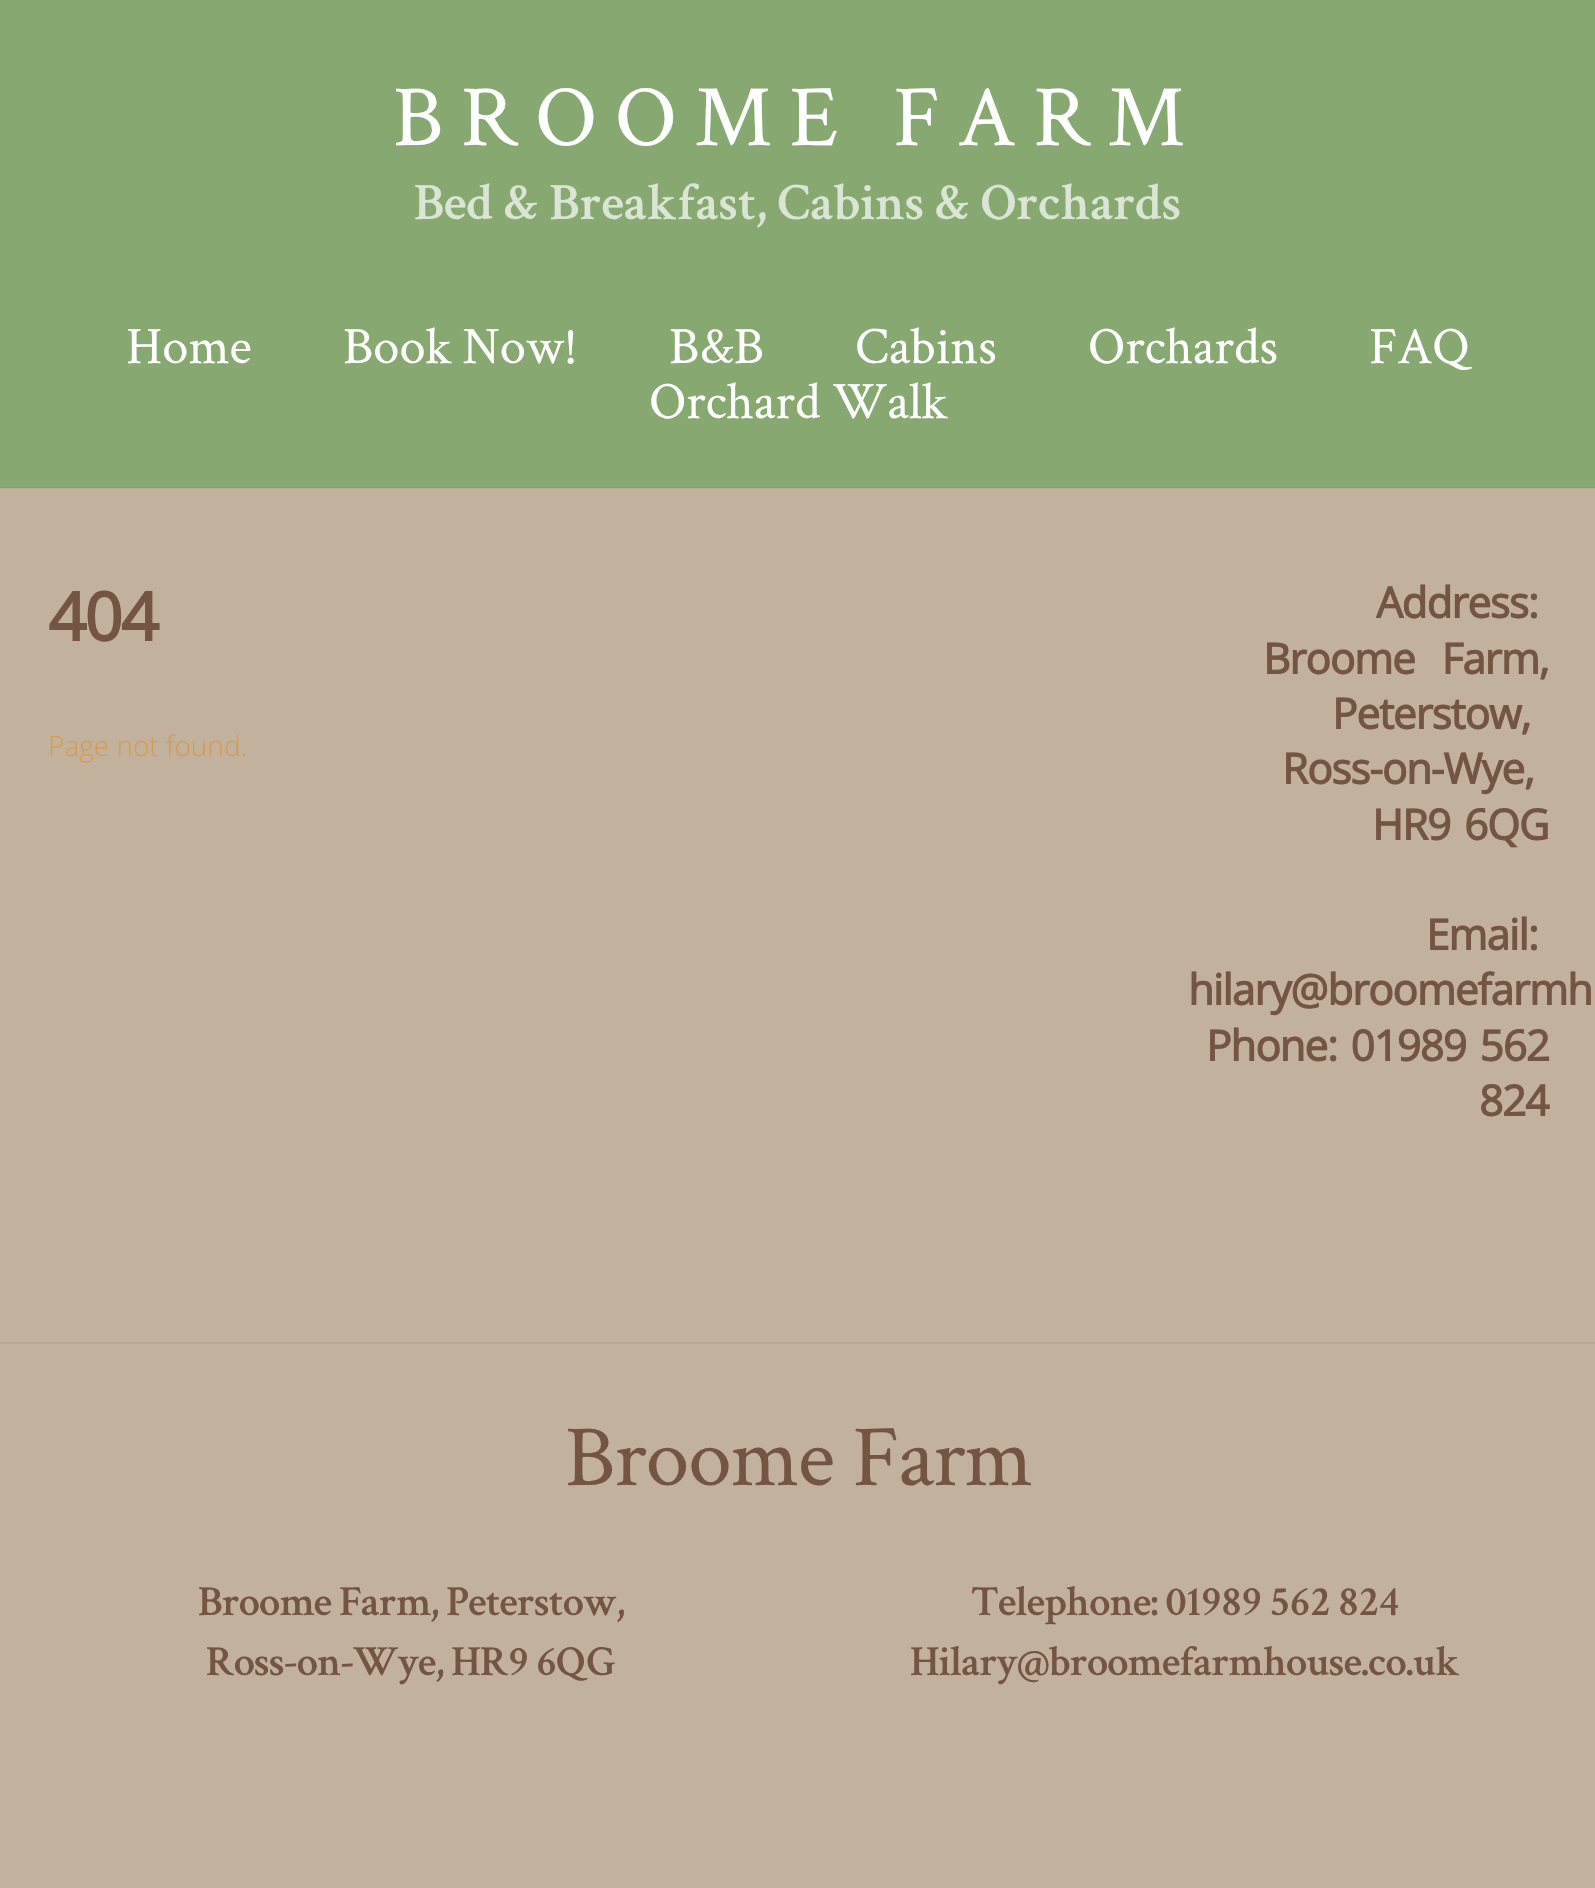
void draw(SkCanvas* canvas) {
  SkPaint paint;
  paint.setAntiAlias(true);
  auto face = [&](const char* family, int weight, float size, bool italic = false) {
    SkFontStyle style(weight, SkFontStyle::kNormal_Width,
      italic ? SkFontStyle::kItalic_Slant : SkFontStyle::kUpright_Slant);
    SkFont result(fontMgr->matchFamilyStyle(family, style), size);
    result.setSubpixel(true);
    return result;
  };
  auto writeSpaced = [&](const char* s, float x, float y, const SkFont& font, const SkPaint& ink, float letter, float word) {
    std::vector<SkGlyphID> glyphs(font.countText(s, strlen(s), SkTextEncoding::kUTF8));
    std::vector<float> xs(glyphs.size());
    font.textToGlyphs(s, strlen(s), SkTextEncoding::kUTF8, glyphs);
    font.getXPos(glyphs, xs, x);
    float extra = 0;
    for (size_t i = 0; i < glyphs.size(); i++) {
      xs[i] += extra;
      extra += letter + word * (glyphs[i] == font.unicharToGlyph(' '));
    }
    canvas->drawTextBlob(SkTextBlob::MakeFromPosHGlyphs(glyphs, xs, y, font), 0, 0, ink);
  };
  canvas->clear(0xffc2b19c);
  {
    const struct { float x, y, w, h; SkColor color; } items[] = {
      {0, 488, 1595, 1, 0xffb8a894},
      {0, 0, 1595, 487, 0xff88a872},
      {0, 487, 1595, 1, 0xff81a06c},
      {0, 1342, 1595, 2, 0xffb8a894},
    };
    for (auto [x, y, w, h, color] : items) {
      paint.setColor(color);
      canvas->drawRect(SkRect::MakeXYWH(x, y, w, h), paint);
    }
  }
  auto f0 = face("Crimson Text", 400, 87.5f);
  paint.setColor(0xffffffff);
  writeSpaced("BROOME FARM", 393, 145, f0, paint, 17.5f, 0);
  auto f1 = face("Crimson Text", 600, 52.5f);
  paint.setColor(0xffdbe5d5);
  canvas->drawString("Bed & Breakfast, Cabins & Orchards", 414, 219, f1, paint);
  auto f2 = face("Crimson Text", 400, 52.5f);
  paint.setColor(0xffffffff);
  {
    const struct { const char* s; float x, y; } items[] = {
      {"Home", 126, 363},
      {"Book Now!", 343, 363},
      {"B&B", 669, 363},
      {"Cabins", 855, 363},
      {"Orchards", 1088, 363},
      {"FAQ", 1369, 363},
      {"Orchard Walk", 649, 418},
    };
    for (auto [s, x, y] : items) {
      canvas->drawString(s, x, y, f2, paint);
    }
  }
  auto f3 = face("Open Sans", 700, 67);
  paint.setColor(0xff745442);
  writeSpaced("404", 48, 641, f3, paint, -2, 0);
  auto f4 = face("Open Sans", 300, 28);
  paint.setColor(0xffd79a51);
  canvas->drawString("Page not found.", 48, 756, f4, paint);
  auto f5 = face("Open Sans", 700, 42.5f);
  paint.setColor(0xff745442);
  writeSpaced("Address:", 1376, 618, f5, paint, -1.25f, 0);
  writeSpaced("Broome Farm,", 1263, 674, f5, paint, -1.25f, 17);
  writeSpaced("Peterstow,", 1332, 729, f5, paint, -1.25f, 0);
  writeSpaced("Ross-on-Wye,", 1282, 784, f5, paint, -1.25f, 0);
  writeSpaced("HR9 6QG", 1372, 840, f5, paint, -1.25f, 4);
  writeSpaced("Email:", 1426, 950, f5, paint, -1.25f, 0);
  writeSpaced("hilary@broomefarmh", 1188, 1005, f5, paint, -1.25f, 0);
  writeSpaced("Phone: 01989 562", 1206, 1061, f5, paint, -1.25f, 4);
  writeSpaced("824", 1479, 1116, f5, paint, -1.25f, 0);
  writeSpaced("Broome Farm", 565, 1485, f0, paint, -1.1f, 0);
  auto f6 = face("Crimson Text", 600, 42.8f);
  {
    const struct { const char* s; float x, y; } items[] = {
      {"Broome Farm, Peterstow,", 198, 1615},
      {"Ross-on-Wye, HR9 6QG", 206, 1675},
      {"Telephone: 01989 562 824", 971, 1615},
      {"Hilary@broomefarmhouse.co.uk", 910, 1675},
    };
    for (auto [s, x, y] : items) {
      writeSpaced(s, x, y, f6, paint, -0.85f, 0);
    }
  }
}
